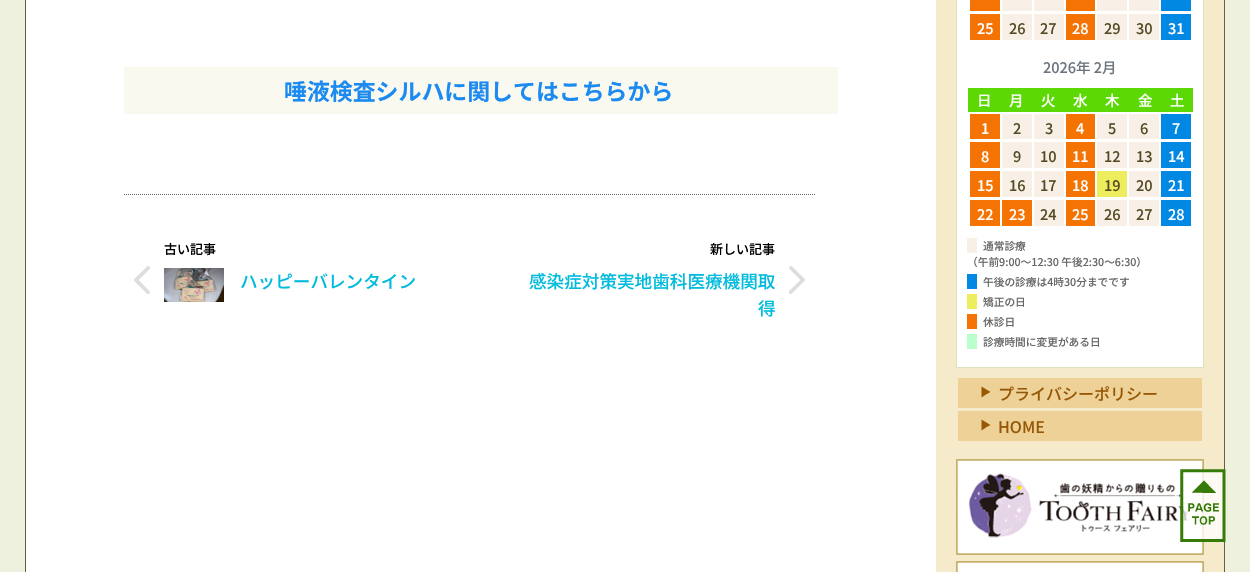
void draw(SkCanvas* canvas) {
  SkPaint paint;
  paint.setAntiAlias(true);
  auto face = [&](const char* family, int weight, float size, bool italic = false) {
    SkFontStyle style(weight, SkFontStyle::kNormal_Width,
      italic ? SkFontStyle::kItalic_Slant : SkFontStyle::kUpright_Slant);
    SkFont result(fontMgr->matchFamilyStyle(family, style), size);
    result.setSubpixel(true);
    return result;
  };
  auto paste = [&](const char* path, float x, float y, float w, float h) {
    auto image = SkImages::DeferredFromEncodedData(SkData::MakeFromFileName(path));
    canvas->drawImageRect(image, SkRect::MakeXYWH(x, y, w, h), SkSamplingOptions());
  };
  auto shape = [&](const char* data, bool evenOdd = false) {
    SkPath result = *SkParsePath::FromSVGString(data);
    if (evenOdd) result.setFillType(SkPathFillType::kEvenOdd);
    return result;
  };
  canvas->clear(0xffeef1dd);
  {
    const struct { float x, y, w, h; SkColor color; } items[] = {
      {26, 0, 910, 572, 0xffffffff},
      {1224, 0, 1, 572, 0xff685f42},
      {25, 0, 1, 572, 0xff685f42},
      {124, 67, 714, 47, 0xfffaf9ef},
    };
    for (auto [x, y, w, h, color] : items) {
      paint.setColor(color);
      canvas->drawRect(SkRect::MakeXYWH(x, y, w, h), paint);
    }
  }
  paint.setStroke(true);
  paint.setStrokeWidth(1);
  paint.setColor(0xff666666);
  paint.setPathEffect(SkDashPathEffect::Make({{1, 1}}, 0));
  canvas->drawPath(shape("M124 194.5H815"), paint);
  paint.setPathEffect(nullptr);
  paste("img/1.png", 134, 266, 16, 28);
  paste("img/2.png", 164, 268, 60, 34);
  paste("img/3.png", 789, 266, 16, 28);
  paint.setStroke(false);
  paint.setColor(0xfff5eac9);
  canvas->drawRect(SkRect::MakeXYWH(936, 0, 288, 572), paint);
  paint.setColor(0xffffffff);
  canvas->drawRect(SkRect::MakeXYWH(956.5f, -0.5f, 247, 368), paint);
  paint.setStroke(true);
  paint.setColor(0xffdde2bf);
  canvas->drawRect(SkRect::MakeXYWH(956.5f, -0.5f, 247, 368), paint);
  paint.setStroke(false);
  {
    const struct { float x, y, w, h; SkColor color; } items[] = {
      {970, 0, 30, 11, 0xfff47302},
      {1002, 0, 30, 11, 0xfff8f0e6},
      {1034, 0, 30, 11, 0xfff8f0e6},
      {1066, 0, 29, 11, 0xfff47302},
      {1097, 0, 30, 11, 0xfff8f0e6},
      {1129, 0, 30, 11, 0xfff8f0e6},
      {1161, 0, 30, 11, 0xff0088e2},
      {970, 14, 30, 26, 0xfff47302},
      {1002, 14, 30, 26, 0xfff8f0e6},
      {1034, 14, 30, 26, 0xfff8f0e6},
      {1066, 14, 29, 26, 0xfff47302},
      {1097, 14, 30, 26, 0xfff8f0e6},
      {1129, 14, 30, 26, 0xfff8f0e6},
      {1161, 14, 30, 26, 0xff0088e2},
      {968, 88, 225, 24, 0xff5cd904},
      {970, 114, 30, 25, 0xfff47302},
      {1002, 114, 30, 25, 0xfff8f0e6},
      {1034, 114, 30, 25, 0xfff8f0e6},
      {1066, 114, 29, 25, 0xfff47302},
      {1097, 114, 30, 25, 0xfff8f0e6},
      {1129, 114, 30, 25, 0xfff8f0e6},
      {1161, 114, 30, 25, 0xff0088e2},
      {970, 142, 30, 26, 0xfff47302},
      {1002, 142, 30, 26, 0xfff8f0e6},
      {1034, 142, 30, 26, 0xfff8f0e6},
      {1066, 142, 29, 26, 0xfff47302},
      {1097, 142, 30, 26, 0xfff8f0e6},
      {1129, 142, 30, 26, 0xfff8f0e6},
      {1161, 142, 30, 26, 0xff0088e2},
      {970, 171, 30, 26, 0xfff47302},
      {1002, 171, 30, 26, 0xfff8f0e6},
      {1034, 171, 30, 26, 0xfff8f0e6},
      {1066, 171, 29, 26, 0xfff47302},
      {1097, 171, 30, 26, 0xffeded5e},
      {1129, 171, 30, 26, 0xfff8f0e6},
      {1161, 171, 30, 26, 0xff0088e2},
      {970, 200, 30, 26, 0xfff47302},
      {1002, 200, 30, 26, 0xfff47302},
      {1034, 200, 30, 26, 0xfff8f0e6},
      {1066, 200, 29, 26, 0xfff47302},
      {1097, 200, 30, 26, 0xfff8f0e6},
      {1129, 200, 30, 26, 0xfff8f0e6},
      {1161, 200, 30, 26, 0xff0088e2},
      {967, 238, 10, 15, 0xfff8f0e6},
      {967, 274, 10, 15, 0xff0088e2},
      {967, 294, 10, 15, 0xffeded5e},
      {967, 314, 10, 15, 0xfff47302},
      {967, 334, 10, 15, 0xffbbffcc},
      {958, 378, 244, 30, 0xffedd196},
    };
    for (auto [x, y, w, h, color] : items) {
      paint.setColor(color);
      canvas->drawRect(SkRect::MakeXYWH(x, y, w, h), paint);
    }
  }
  paint.setColor(0xff975806);
  canvas->drawPath(shape("M986 394.5L981.5 397.5V386.5L990.5 392Z"), paint);
  paint.setColor(0xffedd196);
  canvas->drawRect(SkRect::MakeXYWH(958, 411, 244, 30), paint);
  paint.setColor(0xff975806);
  canvas->drawPath(shape("M986 427.5L981.5 430.5V419.5L990.5 425Z"), paint);
  paste("img/4.png", 956, 459, 248, 96);
  paste("img/5.png", 956, 561, 248, 11);
  paste("img/6.png", 1180, 469, 46, 73);
  auto f0 = face("Noto Sans CJK JP", 700, 22.9f);
  paint.setColor(0xff1b8af1);
  canvas->drawString("唾液検査シルハに関してはこちらから", 284, 100, f0, paint);
  auto f1 = face("Noto Sans CJK JP", 500, 13);
  paint.setColor(0xff000000);
  canvas->drawString("古い記事", 164, 254, f1, paint);
  auto f2 = face("Noto Sans CJK JP", 500, 17.6f);
  paint.setColor(0xff00bbdd);
  canvas->drawString("ハッピーバレンタイン", 240, 288, f2, paint);
  paint.setColor(0xff000000);
  canvas->drawString("新しい記事", 710, 254, f1, paint);
  paint.setColor(0xff00bbdd);
  canvas->drawString("感染症対策実地歯科医療機関取", 529, 288, f2, paint);
  canvas->drawString("得", 758, 315, f2, paint);
  auto f3 = face("Noto Sans CJK JP", 500, 14.5f);
  paint.setColor(0xffffffff);
  canvas->drawString("25", 977, 34, f3, paint);
  paint.setColor(0xff554a25);
  canvas->drawString("26", 1009, 34, f3, paint);
  canvas->drawString("27", 1040, 34, f3, paint);
  paint.setColor(0xffffffff);
  canvas->drawString("28", 1072, 34, f3, paint);
  paint.setColor(0xff554a25);
  canvas->drawString("29", 1104, 34, f3, paint);
  canvas->drawString("30", 1136, 34, f3, paint);
  paint.setColor(0xffffffff);
  canvas->drawString("31", 1168, 34, f3, paint);
  paint.setColor(0xff6c757d);
  canvas->drawString("2026年 2月", 1043, 73, f3, paint);
  paint.setColor(0xffffffff);
  {
    const struct { const char* s; float x, y; } items[] = {
      {"日", 977, 106},
      {"月", 1009, 106},
      {"火", 1041, 106},
      {"水", 1073, 106},
      {"木", 1105, 106},
      {"金", 1138, 106},
      {"土", 1170, 106},
      {"1", 981, 134},
    };
    for (auto [s, x, y] : items) {
      canvas->drawString(s, x, y, f3, paint);
    }
  }
  paint.setColor(0xff554a25);
  canvas->drawString("2", 1013, 134, f3, paint);
  canvas->drawString("3", 1045, 134, f3, paint);
  paint.setColor(0xffffffff);
  canvas->drawString("4", 1076, 134, f3, paint);
  paint.setColor(0xff554a25);
  canvas->drawString("5", 1108, 134, f3, paint);
  canvas->drawString("6", 1140, 134, f3, paint);
  paint.setColor(0xffffffff);
  canvas->drawString("7", 1172, 134, f3, paint);
  canvas->drawString("8", 981, 162, f3, paint);
  paint.setColor(0xff554a25);
  canvas->drawString("9", 1013, 162, f3, paint);
  canvas->drawString("10", 1040, 162, f3, paint);
  paint.setColor(0xffffffff);
  canvas->drawString("11", 1072, 162, f3, paint);
  paint.setColor(0xff554a25);
  canvas->drawString("12", 1104, 162, f3, paint);
  canvas->drawString("13", 1136, 162, f3, paint);
  paint.setColor(0xffffffff);
  canvas->drawString("14", 1168, 162, f3, paint);
  canvas->drawString("15", 977, 191, f3, paint);
  paint.setColor(0xff554a25);
  canvas->drawString("16", 1009, 191, f3, paint);
  canvas->drawString("17", 1040, 191, f3, paint);
  paint.setColor(0xffffffff);
  canvas->drawString("18", 1072, 191, f3, paint);
  paint.setColor(0xff554a25);
  canvas->drawString("19", 1104, 191, f3, paint);
  canvas->drawString("20", 1136, 191, f3, paint);
  paint.setColor(0xffffffff);
  {
    const struct { const char* s; float x, y; } items[] = {
      {"21", 1168, 191},
      {"22", 977, 220},
      {"23", 1009, 220},
    };
    for (auto [s, x, y] : items) {
      canvas->drawString(s, x, y, f3, paint);
    }
  }
  paint.setColor(0xff554a25);
  canvas->drawString("24", 1040, 220, f3, paint);
  paint.setColor(0xffffffff);
  canvas->drawString("25", 1072, 220, f3, paint);
  paint.setColor(0xff554a25);
  canvas->drawString("26", 1104, 220, f3, paint);
  canvas->drawString("27", 1136, 220, f3, paint);
  paint.setColor(0xffffffff);
  canvas->drawString("28", 1168, 220, f3, paint);
  auto f4 = face("Noto Sans CJK JP", 500, 10.7f);
  paint.setColor(0xff666666);
  {
    const struct { const char* s; float x, y; } items[] = {
      {"通常診療", 983, 250},
      {"（午前9:00～12:30 午後2:30～6:30）", 967, 266},
      {"午後の診療は4時30分までです", 983, 286},
      {"矯正の日", 983, 306},
      {"休診日", 983, 326},
      {"診療時間に変更がある日", 983, 346},
    };
    for (auto [s, x, y] : items) {
      canvas->drawString(s, x, y, f4, paint);
    }
  }
  auto f5 = face("Noto Sans CJK JP", 500, 16);
  paint.setColor(0xff975806);
  canvas->drawString("プライバシーポリシー", 998, 400, f5, paint);
  canvas->drawString("HOME", 998, 433, f5, paint);
}
